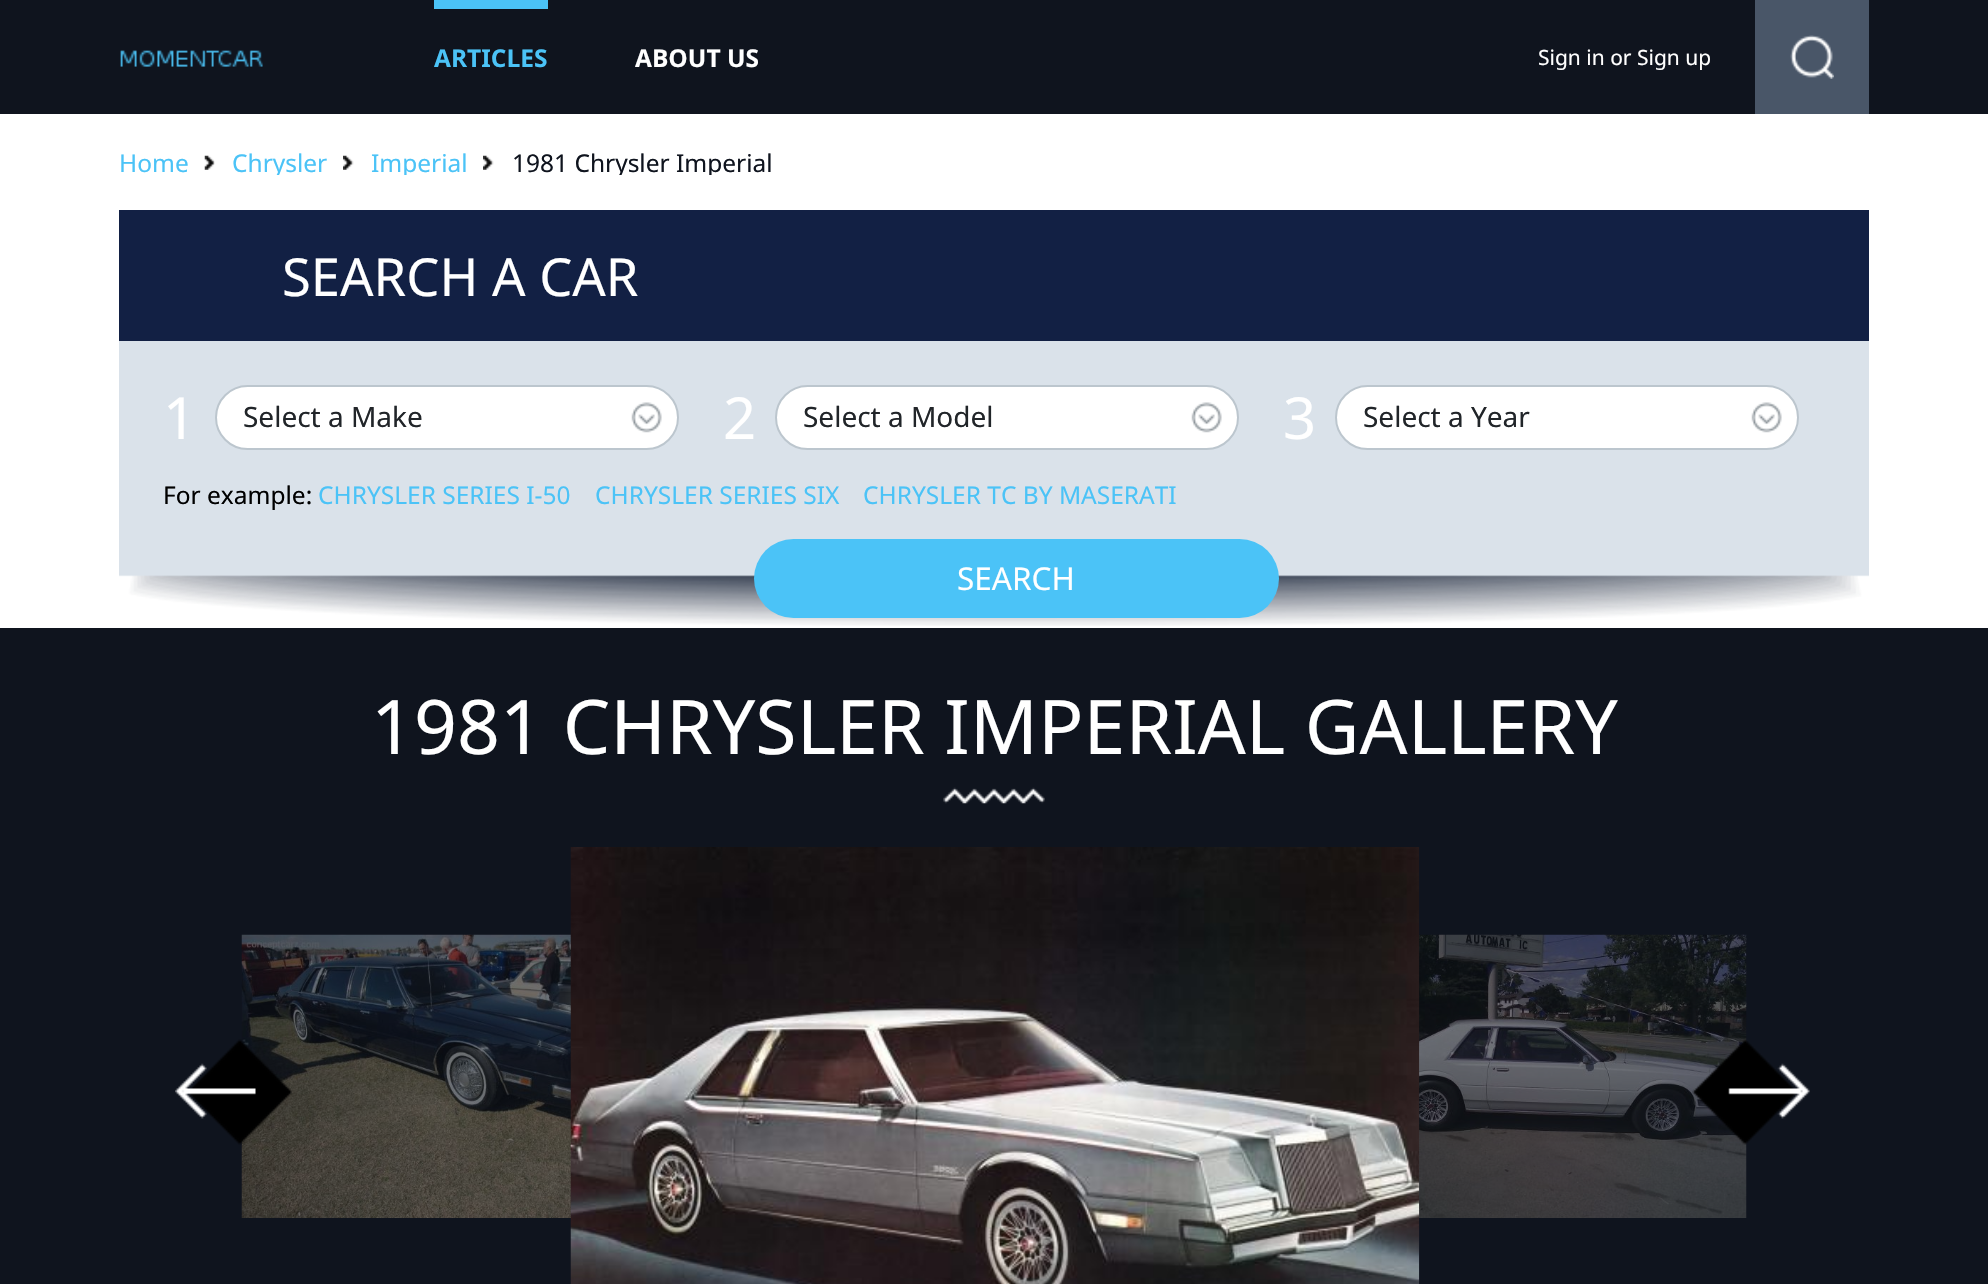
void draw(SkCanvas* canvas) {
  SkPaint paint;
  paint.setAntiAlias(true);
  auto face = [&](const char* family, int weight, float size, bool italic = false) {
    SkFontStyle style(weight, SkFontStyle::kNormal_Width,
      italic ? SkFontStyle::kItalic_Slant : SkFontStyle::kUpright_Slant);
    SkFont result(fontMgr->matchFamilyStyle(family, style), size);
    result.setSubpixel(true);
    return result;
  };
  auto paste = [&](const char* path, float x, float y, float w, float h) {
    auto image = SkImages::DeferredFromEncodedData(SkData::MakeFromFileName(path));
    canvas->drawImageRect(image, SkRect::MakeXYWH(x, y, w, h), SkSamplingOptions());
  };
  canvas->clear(0xffffffff);
  paint.setColor(0xff0f141e);
  canvas->drawRect(SkRect::MakeXYWH(0, 0, 1988, 114), paint);
  paste("img/1.png", 120, 50, 143, 17);
  paint.setColor(0xff4bc3f7);
  canvas->drawRect(SkRect::MakeXYWH(434, 0, 114, 9), paint);
  paint.setColor(0xff495668);
  canvas->drawRect(SkRect::MakeXYWH(1755, 0, 114, 114), paint);
  paste("img/2.png", 1790, 35, 44, 44);
  paste("img/3.png", 204, 155, 11, 15);
  paste("img/4.png", 343, 155, 11, 15);
  paste("img/4.png", 483, 155, 11, 15);
  paste("img/5.png", 119, 569, 1750, 57);
  paint.setColor(0xff122044);
  canvas->drawRect(SkRect::MakeXYWH(119, 210, 1750, 131), paint);
  paint.setColor(0xffdae2ea);
  canvas->drawRect(SkRect::MakeXYWH(119, 341, 1750, 228), paint);
  paint.setColor(0xffffffff);
  canvas->drawRoundRect(SkRect::MakeXYWH(216, 386, 462, 63), 31.5f, 31.5f, paint);
  paint.setStroke(true);
  paint.setStrokeWidth(2);
  paint.setColor(0xffbcc6ce);
  canvas->drawRoundRect(SkRect::MakeXYWH(216, 386, 462, 63), 31.5f, 31.5f, paint);
  paste("img/6.png", 631, 402, 31, 31);
  paint.setStroke(false);
  paint.setColor(0xffffffff);
  canvas->drawRoundRect(SkRect::MakeXYWH(776, 386, 462, 63), 31.5f, 31.5f, paint);
  paint.setStroke(true);
  paint.setColor(0xffbcc6ce);
  canvas->drawRoundRect(SkRect::MakeXYWH(776, 386, 462, 63), 31.5f, 31.5f, paint);
  paste("img/6.png", 1191, 402, 31, 31);
  paint.setStroke(false);
  paint.setColor(0xffffffff);
  canvas->drawRoundRect(SkRect::MakeXYWH(1336, 386, 462, 63), 31.5f, 31.5f, paint);
  paint.setStroke(true);
  paint.setColor(0xffbcc6ce);
  canvas->drawRoundRect(SkRect::MakeXYWH(1336, 386, 462, 63), 31.5f, 31.5f, paint);
  paste("img/6.png", 1751, 402, 31, 31);
  paint.setStroke(false);
  paint.setColor(0xff4bc3f7);
  canvas->drawRoundRect(SkRect::MakeXYWH(754, 539, 525, 79), 39.5f, 39.5f, paint);
  paint.setColor(0xff0f141e);
  canvas->drawRect(SkRect::MakeXYWH(0, 628, 1988, 656), paint);
  paste("img/7.png", 943, 787, 102, 17);
  paste("img/9.png", 241, 934, 330, 284);
  paste("img/8.png", 175, 1039, 118, 106);
  paste("img/11.png", 1419, 934, 328, 284);
  paste("img/10.png", 570, 847, 850, 437);
  paste("img/12.png", 1692, 1039, 118, 106);
  auto f0 = face("Noto Sans", 700, 24.5f);
  paint.setColor(0xff4bc3f7);
  canvas->drawString("ARTICLES", 434, 67, f0, paint);
  paint.setColor(0xffffffff);
  canvas->drawString("ABOUT US", 635, 67, f0, paint);
  auto f1 = face("Noto Sans", 400, 21);
  canvas->drawString("Sign in or Sign up", 1538, 65, f1, paint);
  auto f2 = face("Noto Sans", 400, 24.5f);
  paint.setColor(0xff4bc3f7);
  canvas->drawString("Home", 119, 172, f2, paint);
  canvas->save();
  canvas->clipRect(SkRect::MakeXYWH(102, 149, 1767, 26));
  canvas->drawString("Chrysler", 232, 172, f2, paint);
  canvas->drawString("Imperial", 371, 172, f2, paint);
  paint.setColor(0xff0f141e);
  canvas->drawString("1981 Chrysler Imperial", 512, 172, f2, paint);
  canvas->restore();
  auto f3 = face("Noto Sans", 400, 52.5f);
  paint.setColor(0xffffffff);
  canvas->drawString("SEARCH A CAR", 282, 296, f3, paint);
  auto f4 = face("Noto Sans", 400, 58);
  canvas->drawString("1", 163, 439, f4, paint);
  auto f5 = face("Noto Sans", 400, 28);
  paint.setColor(0xff212529);
  canvas->drawString("Select a Make", 243, 427, f5, paint);
  paint.setColor(0xffffffff);
  canvas->drawString("2", 723, 439, f4, paint);
  paint.setColor(0xff212529);
  canvas->drawString("Select a Model", 803, 427, f5, paint);
  paint.setColor(0xffffffff);
  canvas->drawString("3", 1283, 439, f4, paint);
  paint.setColor(0xff212529);
  canvas->drawString("Select a Year", 1363, 427, f5, paint);
  paint.setColor(0xff000000);
  canvas->drawString("For example:", 163, 504, f2, paint);
  paint.setColor(0xff4bc3f7);
  {
    const struct { const char* s; float x, y; } items[] = {
      {"CHRYSLER SERIES I-50", 318, 504},
      {"CHRYSLER SERIES SIX", 595, 504},
      {"CHRYSLER TC BY MASERATI", 863, 504},
    };
    for (auto [s, x, y] : items) {
      canvas->drawString(s, x, y, f2, paint);
    }
  }
  auto f6 = face("Noto Sans", 400, 31.5f);
  paint.setColor(0xffffffff);
  canvas->drawString("SEARCH", 957, 590, f6, paint);
  auto f7 = face("Noto Sans", 400, 75.25f);
  canvas->drawString("1981 CHRYSLER IMPERIAL GALLERY", 371, 754, f7, paint);
}
